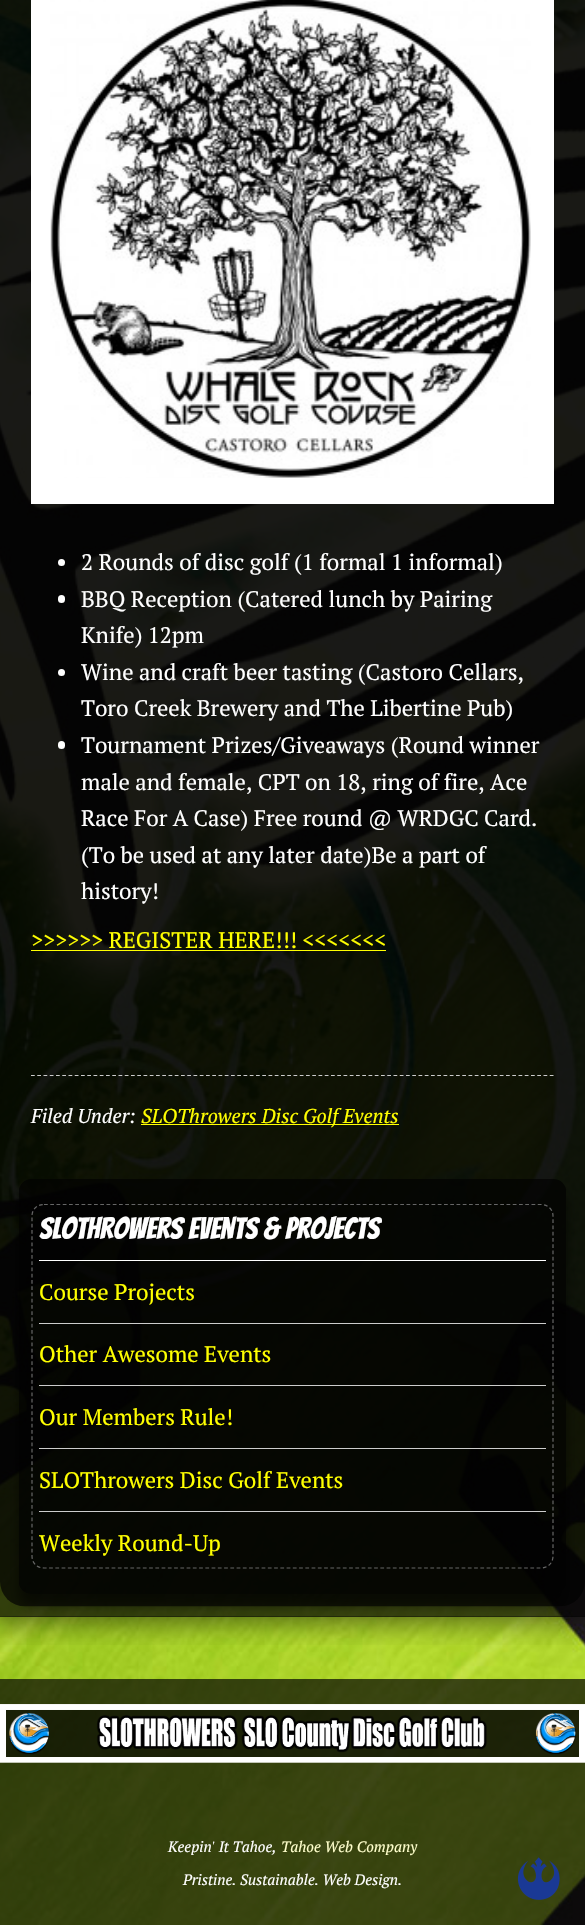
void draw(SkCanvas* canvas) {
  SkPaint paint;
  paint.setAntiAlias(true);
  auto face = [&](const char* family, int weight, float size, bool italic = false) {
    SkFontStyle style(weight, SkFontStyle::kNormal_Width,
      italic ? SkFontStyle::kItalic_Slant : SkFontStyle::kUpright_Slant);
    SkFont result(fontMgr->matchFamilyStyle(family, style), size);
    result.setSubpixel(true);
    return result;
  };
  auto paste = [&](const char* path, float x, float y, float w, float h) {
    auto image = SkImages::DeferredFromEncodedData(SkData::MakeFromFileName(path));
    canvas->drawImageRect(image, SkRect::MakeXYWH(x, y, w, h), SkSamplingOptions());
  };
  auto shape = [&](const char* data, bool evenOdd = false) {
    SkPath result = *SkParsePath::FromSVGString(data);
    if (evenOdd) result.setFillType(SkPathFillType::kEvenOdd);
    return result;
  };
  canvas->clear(0xffffffff);
  paste("img/1.png", 0, 0, 585, 1925);
  canvas->save();
  canvas->clipRect(SkRect::MakeXYWH(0, 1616, 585, 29));
  paint.setColor(0x80000000);
  paint.setMaskFilter(SkMaskFilter::MakeBlur(kNormal_SkBlurStyle, 12.5f));
  canvas->drawRect(SkRect::MakeXYWH(-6, -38, 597, 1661), paint);
  paint.setMaskFilter(nullptr);
  canvas->restore();
  paint.setColor(0xb0000000);
  canvas->drawRect(SkRect::MakeXYWH(0, 0, 585, 1617), paint);
  paste("img/2.png", 0, 0, 585, 1607);
  paint.setColor(0xffffffff);
  canvas->drawRect(SkRect::MakeXYWH(31, 0, 523, 504), paint);
  paste("img/3.png", 50, 0, 481, 478);
  canvas->drawCircle(61.5f, 562.5f, 3.5f, paint);
  canvas->drawRoundRect(SkRect::MakeXYWH(58, 595, 7, 8), 3.5f, 3.5f, paint);
  canvas->drawCircle(61.5f, 672.5f, 3.5f, paint);
  canvas->drawRoundRect(SkRect::MakeXYWH(58, 741, 7, 8), 3.5f, 3.5f, paint);
  paint.setColor(0xffffff00);
  canvas->drawRect(SkRect::MakeXYWH(31, 950, 355, 1), paint);
  paint.setStroke(true);
  paint.setStrokeWidth(1.2f);
  paint.setColor(0xffcccccc);
  paint.setPathEffect(SkDashPathEffect::Make({{3.75f, 2.5f}}, 0));
  canvas->drawPath(shape("M31 1075.5H554"), paint);
  paint.setPathEffect(nullptr);
  paint.setStroke(false);
  paint.setColor(0xffffff00);
  canvas->drawRect(SkRect::MakeXYWH(141, 1124, 258, 1), paint);
  canvas->save();
  canvas->clipPath(shape("M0 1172H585V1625H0ZM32 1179H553C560 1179 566 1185 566 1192V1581C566 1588 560 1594 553 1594H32C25 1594 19 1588 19 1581V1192C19 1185 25 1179 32 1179Z", true), true);
  paint.setColor(0x80000000);
  paint.setMaskFilter(SkMaskFilter::MakeBlur(kNormal_SkBlurStyle, 6));
  canvas->drawRoundRect(SkRect::MakeXYWH(19, 1191, 547, 415), 13, 13, paint);
  paint.setMaskFilter(nullptr);
  canvas->restore();
  paste("img/4.png", 19, 1179, 547, 415);
  paint.setStroke(true);
  paint.setColor(0xff666666);
  paint.setPathEffect(SkDashPathEffect::Make({{3.75f, 2.5f}}, 0));
  canvas->drawPath(shape("M44 1204.5H541C548 1204.5 553 1209.5 553 1216V1556C553 1563 548 1568 541 1568H44C37 1568 32 1563 32 1556V1216C32 1209.5 37 1204.5 44 1204.5Z"), paint);
  paint.setPathEffect(nullptr);
  paint.setStroke(false);
  {
    const struct { float x, y, w, h; SkColor color; } items[] = {
      {39, 1260, 507, 1, 0xffffffff},
      {39, 1323, 507, 1, 0xffcccccc},
      {39, 1385, 507, 1, 0xffcccccc},
      {39, 1448, 507, 1, 0xffcccccc},
      {39, 1511, 507, 1, 0xffcccccc},
      {0, 1679, 585, 246, 0xb0000000},
    };
    for (auto [x, y, w, h, color] : items) {
      paint.setColor(color);
      canvas->drawRect(SkRect::MakeXYWH(x, y, w, h), paint);
    }
  }
  paste("img/5.png", 0, 1704, 585, 59);
  paste("img/6.png", 517, 1857, 43, 43);
  auto f0 = face("PT Serif", 400, 22.5f);
  paint.setColor(0xffffffff);
  {
    const struct { const char* s; float x, y; } items[] = {
      {"2 Rounds of disc golf (1 formal 1 informal)", 81, 570},
      {"BBQ Reception (Catered lunch by Pairing", 81, 607},
      {"Knife) 12pm", 81, 643},
      {"Wine and craft beer tasting (Castoro Cellars,", 81, 680},
      {"Toro Creek Brewery and The Libertine Pub)", 81, 716},
      {"Tournament Prizes/Giveaways (Round winner", 81, 753},
      {"male and female, CPT on 18, ring of fire, Ace", 81, 790},
      {"Race For A Case) Free round @ WRDGC Card.", 81, 826},
      {"(To be used at any later date)Be a part of", 81, 863},
      {"history!", 81, 899},
    };
    for (auto [s, x, y] : items) {
      canvas->drawString(s, x, y, f0, paint);
    }
  }
  paint.setColor(0xffffff00);
  canvas->drawString(">>>>>> REGISTER HERE!!! <<<<<<<", 31, 948, f0, paint);
  auto f1 = face("PT Serif", 400, 20, true);
  paint.setColor(0xffffffff);
  canvas->drawString("Filed Under:", 31, 1123, f1, paint);
  paint.setColor(0xffffff00);
  canvas->drawString("SLOThrowers Disc Golf Events", 141, 1123, f1, paint);
  auto f2 = face("Bangers", 400, 30);
  paint.setColor(0xffffffff);
  canvas->drawString("SLOThrowers Events & Projects", 39, 1239, f2, paint);
  paint.setColor(0xffffff00);
  {
    const struct { const char* s; float x, y; } items[] = {
      {"Course Projects", 39, 1300},
      {"Other Awesome Events", 39, 1362},
      {"Our Members Rule!", 39, 1425},
      {"SLOThrowers Disc Golf Events", 39, 1488},
      {"Weekly Round-Up", 39, 1551},
    };
    for (auto [s, x, y] : items) {
      canvas->drawString(s, x, y, f0, paint);
    }
  }
  auto f3 = face("PT Serif", 400, 15, true);
  paint.setColor(0xffffffff);
  canvas->drawString("Keepin' It Tahoe,", 168, 1852, f3, paint);
  paint.setColor(0xffffffcc);
  canvas->drawString("Tahoe Web Company", 281, 1852, f3, paint);
  paint.setColor(0xffffffff);
  canvas->drawString("Pristine. Sustainable. Web Design.", 183, 1885, f3, paint);
}
